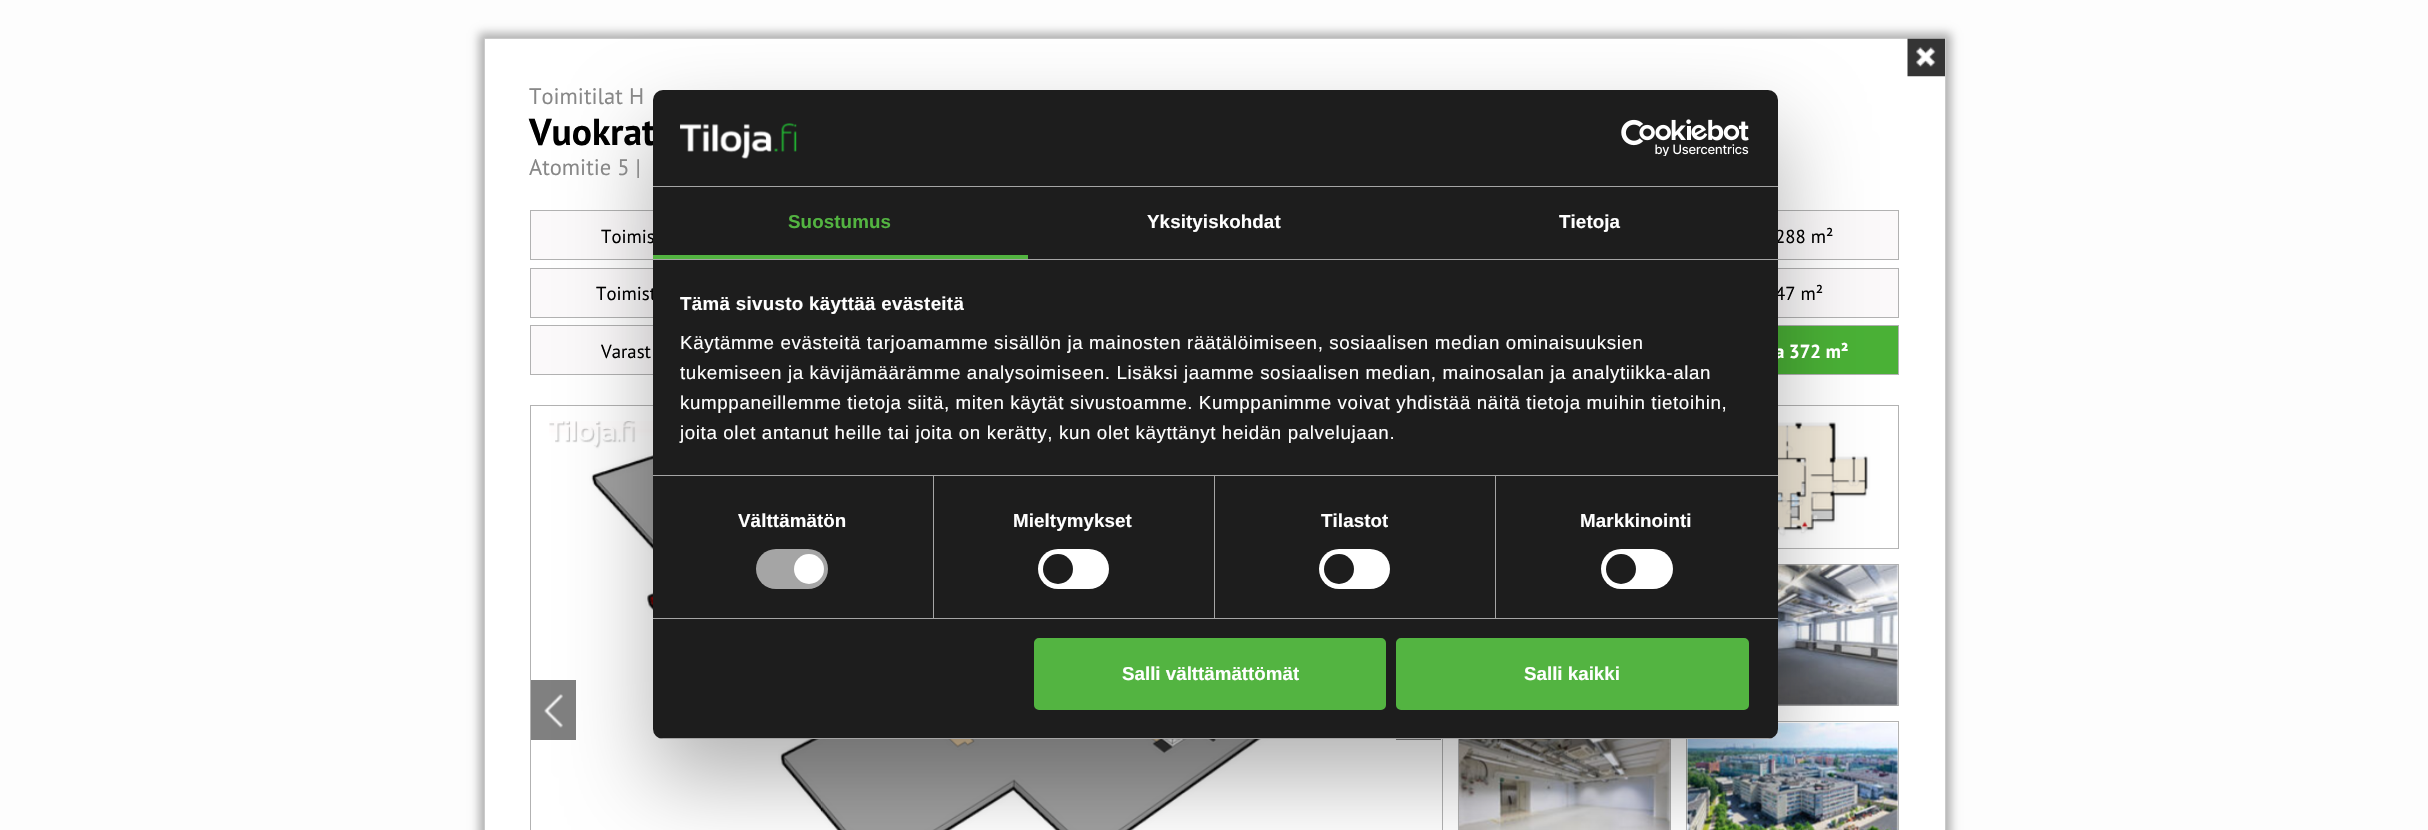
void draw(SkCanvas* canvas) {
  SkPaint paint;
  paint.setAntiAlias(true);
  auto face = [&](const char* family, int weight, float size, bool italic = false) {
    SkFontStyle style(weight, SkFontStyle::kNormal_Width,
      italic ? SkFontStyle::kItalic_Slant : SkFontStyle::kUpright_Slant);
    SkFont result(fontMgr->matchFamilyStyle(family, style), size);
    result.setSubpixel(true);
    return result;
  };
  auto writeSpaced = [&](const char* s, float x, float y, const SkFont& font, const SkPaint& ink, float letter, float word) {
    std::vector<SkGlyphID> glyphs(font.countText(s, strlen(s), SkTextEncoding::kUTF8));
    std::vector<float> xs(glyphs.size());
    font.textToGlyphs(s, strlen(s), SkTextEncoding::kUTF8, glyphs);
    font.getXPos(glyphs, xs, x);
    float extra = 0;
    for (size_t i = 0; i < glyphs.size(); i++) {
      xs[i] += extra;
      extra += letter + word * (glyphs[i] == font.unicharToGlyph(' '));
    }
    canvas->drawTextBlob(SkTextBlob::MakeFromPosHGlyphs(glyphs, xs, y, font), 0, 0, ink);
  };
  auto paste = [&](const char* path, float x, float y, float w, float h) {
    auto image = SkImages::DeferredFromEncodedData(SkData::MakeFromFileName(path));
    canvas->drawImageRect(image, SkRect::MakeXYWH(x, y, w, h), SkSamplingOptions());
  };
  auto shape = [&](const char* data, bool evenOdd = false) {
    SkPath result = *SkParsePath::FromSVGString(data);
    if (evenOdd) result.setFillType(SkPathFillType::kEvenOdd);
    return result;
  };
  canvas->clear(0xfffdfdfd);
  paint.setColor(0x4d000000);
  paint.setMaskFilter(SkMaskFilter::MakeBlur(kNormal_SkBlurStyle, 4.5f));
  canvas->drawRect(SkRect::MakeXYWH(479, 33, 1472, 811), paint);
  paint.setMaskFilter(nullptr);
  paint.setStroke(true);
  paint.setStrokeWidth(1);
  paint.setColor(0xffcacaca);
  canvas->drawRect(SkRect::MakeXYWH(484.5f, 38.5f, 1461, 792), paint);
  paint.setStroke(false);
  paint.setColor(0xffffffff);
  canvas->drawRect(SkRect::MakeXYWH(485, 39, 1460, 791), paint);
  paste("img/1.png", 1907, 38, 38, 39);
  paint.setColor(0xfffbf9fa);
  canvas->drawRect(SkRect::MakeXYWH(531, 211, 122, 48), paint);
  paint.setStroke(true);
  paint.setColor(0xffb2b2b2);
  canvas->drawRect(SkRect::MakeXYWH(530.5f, 210.5f, 264, 49), paint);
  paint.setStroke(false);
  paint.setColor(0xfffbf9fa);
  canvas->drawRect(SkRect::MakeXYWH(1778, 211, 120, 48), paint);
  paint.setStroke(true);
  paint.setColor(0xffb2b2b2);
  canvas->drawRect(SkRect::MakeXYWH(1634.5f, 210.5f, 264, 49), paint);
  paint.setStroke(false);
  paint.setColor(0xfffbf9fa);
  canvas->drawRect(SkRect::MakeXYWH(531, 269, 122, 48), paint);
  paint.setStroke(true);
  paint.setColor(0xffb2b2b2);
  canvas->drawRect(SkRect::MakeXYWH(530.5f, 268.5f, 264, 49), paint);
  paint.setStroke(false);
  paint.setColor(0xfffbf9fa);
  canvas->drawRect(SkRect::MakeXYWH(1778, 269, 120, 48), paint);
  paint.setStroke(true);
  paint.setColor(0xffb2b2b2);
  canvas->drawRect(SkRect::MakeXYWH(1634.5f, 268.5f, 264, 49), paint);
  paint.setStroke(false);
  paint.setColor(0xfffbf9fa);
  canvas->drawRect(SkRect::MakeXYWH(531, 326, 122, 48), paint);
  paint.setStroke(true);
  paint.setColor(0xffb2b2b2);
  canvas->drawRect(SkRect::MakeXYWH(530.5f, 325.5f, 264, 49), paint);
  paint.setStroke(false);
  paint.setColor(0xff4ab136);
  canvas->drawRect(SkRect::MakeXYWH(1778, 326, 120, 48), paint);
  paint.setStroke(true);
  paint.setColor(0xffb2b2b2);
  canvas->drawRect(SkRect::MakeXYWH(1634.5f, 325.5f, 264, 49), paint);
  canvas->drawRect(SkRect::MakeXYWH(530.5f, 405.5f, 912, 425), paint);
  paste("img/2.png", 549, 421, 790, 409);
  paint.setStroke(false);
  paint.setColor(0xff808080);
  canvas->drawRect(SkRect::MakeXYWH(531, 680, 45, 60), paint);
  paste("img/3.png", 544, 694, 19, 34);
  canvas->drawRect(SkRect::MakeXYWH(1396, 739, 45, 1), paint);
  paint.setStroke(true);
  paint.setColor(0xffb2b2b2);
  canvas->drawRect(SkRect::MakeXYWH(1686.5f, 405.5f, 212, 143), paint);
  paste("img/4.png", 1778, 407, 119, 142);
  canvas->drawRect(SkRect::MakeXYWH(1686.5f, 564.5f, 212, 141), paint);
  paste("img/5.png", 1778, 564, 120, 142);
  canvas->drawRect(SkRect::MakeXYWH(1458.5f, 721.5f, 212, 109), paint);
  paste("img/6.png", 1459, 739, 212, 91);
  canvas->drawRect(SkRect::MakeXYWH(1686.5f, 721.5f, 212, 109), paint);
  paste("img/7.png", 1686, 723, 212, 107);
  paint.setStroke(false);
  paint.setColor(0x4d000000);
  paint.setMaskFilter(SkMaskFilter::MakeBlur(kNormal_SkBlurStyle, 42.5f));
  canvas->drawRoundRect(SkRect::MakeXYWH(653, 130, 1125, 649), 10, 10, paint);
  paint.setMaskFilter(nullptr);
  auto f0 = face("PT Sans", 400, 22.5f);
  paint.setColor(0xff888888);
  canvas->drawString("Toimitilat H", 529, 104, f0, paint);
  auto f1 = face("PT Sans", 700, 37.5f);
  paint.setColor(0xff000000);
  canvas->drawString("Vuokrat", 529, 145, f1, paint);
  paint.setColor(0xff888888);
  canvas->drawString("Atomitie 5 |", 529, 175, f0, paint);
  auto f2 = face("PT Sans", 400, 18.75f);
  paint.setColor(0xff000000);
  {
    const struct { const char* s; float x, y; } items[] = {
      {"Toimis", 601, 243},
      {"288 m²", 1775, 243},
      {"Toimist", 596, 300},
      {"47 m²", 1775, 300},
      {"Varast", 601, 358},
    };
    for (auto [s, x, y] : items) {
      canvas->drawString(s, x, y, f2, paint);
    }
  }
  auto f3 = face("PT Sans", 700, 18.75f);
  paint.setColor(0xffffffff);
  canvas->drawString("a 372 m²", 1775, 358, f3, paint);
  paint.setColor(0xff1d1d1d);
  canvas->drawRoundRect(SkRect::MakeXYWH(653, 90, 1125, 649), 10, 10, paint);
  paint.setColor(0xffa5a5a5);
  canvas->drawRect(SkRect::MakeXYWH(653, 186, 1125, 1), paint);
  paste("img/8.png", 680, 123, 117, 36);
  paste("img/9.png", 1621, 119, 128, 37);
  canvas->drawRect(SkRect::MakeXYWH(653, 259, 1125, 1), paint);
  paint.setColor(0xff53b441);
  canvas->drawRect(SkRect::MakeXYWH(653, 255, 375, 4), paint);
  auto f4 = face("Liberation Sans", 700, 18.75f);
  writeSpaced("Suostumus", 788, 228, f4, paint, 0.1f, 0);
  paint.setColor(0xffffffff);
  writeSpaced("Yksityiskohdat", 1147, 228, f4, paint, 0.1f, 0);
  writeSpaced("Tietoja", 1559, 228, f4, paint, 0.1f, 0);
  paint.setColor(0xffa5a5a5);
  canvas->drawRect(SkRect::MakeXYWH(653, 475, 1125, 1), paint);
  paint.setColor(0xffffffff);
  writeSpaced("Tämä sivusto käyttää evästeitä", 680, 310, f4, paint, 0.3f, 0);
  auto f5 = face("Liberation Sans", 400, 18.75f);
  {
    const struct { const char* s; float x, y; } items[] = {
      {"Käytämme evästeitä tarjoamamme sisällön ja mainosten räätälöimiseen, sosiaalisen median ominaisuuksien", 680, 349},
      {"tukemiseen ja kävijämäärämme analysoimiseen. Lisäksi jaamme sosiaalisen median, mainosalan ja analytiikka-alan", 680, 379},
      {"kumppaneillemme tietoja siitä, miten käytät sivustoamme. Kumppanimme voivat yhdistää näitä tietoja muihin tietoihin,", 680, 409},
      {"joita olet antanut heille tai joita on kerätty, kun olet käyttänyt heidän palvelujaan.", 680, 439},
    };
    for (auto [s, x, y] : items) {
      writeSpaced(s, x, y, f5, paint, 0.62f, 0);
    }
  }
  paint.setColor(0xffa5a5a5);
  canvas->drawRect(SkRect::MakeXYWH(653, 618, 1125, 1), paint);
  canvas->drawRect(SkRect::MakeXYWH(933, 476, 1, 142), paint);
  paint.setColor(0xffffffff);
  writeSpaced("Välttämätön", 738, 527, f4, paint, 0.1f, 0);
  paint.setColor(0xffa5a5a5);
  canvas->drawRoundRect(SkRect::MakeXYWH(756, 549, 72, 40), 20, 20, paint);
  paint.setColor(0xffffffff);
  canvas->drawCircle(809, 569, 15, paint);
  paint.setColor(0xffa5a5a5);
  canvas->drawRect(SkRect::MakeXYWH(1214, 476, 1, 142), paint);
  paint.setColor(0xffffffff);
  writeSpaced("Mieltymykset", 1013, 527, f4, paint, 0.1f, 0);
  canvas->drawRoundRect(SkRect::MakeXYWH(1038, 549, 71, 40), 20, 20, paint);
  paint.setColor(0xff1d1d1d);
  canvas->drawCircle(1058, 569, 15, paint);
  paint.setColor(0xffa5a5a5);
  canvas->drawRect(SkRect::MakeXYWH(1495, 476, 1, 142), paint);
  paint.setColor(0xffffffff);
  writeSpaced("Tilastot", 1321, 527, f4, paint, 0.1f, 0);
  canvas->drawRoundRect(SkRect::MakeXYWH(1319, 549, 71, 40), 20, 20, paint);
  paint.setColor(0xff1d1d1d);
  canvas->drawCircle(1339, 569, 15, paint);
  paint.setColor(0xffffffff);
  writeSpaced("Markkinointi", 1580, 527, f4, paint, 0.1f, 0);
  canvas->drawRoundRect(SkRect::MakeXYWH(1601, 549, 72, 40), 20, 20, paint);
  paint.setColor(0xff1d1d1d);
  canvas->drawCircle(1621, 569, 15, paint);
  canvas->save();
  canvas->clipPath(shape("M663 90H1768C1773.5 90 1778 94.5 1778 100V729C1778 734.5 1773.5 739 1768 739H663C657.5 739 653 734.5 653 729V100C653 94.5 657.5 90 663 90Z"), true);
  paint.setColor(0xffa5a5a5);
  canvas->drawRect(SkRect::MakeXYWH(653, 738, 1125, 1), paint);
  canvas->restore();
  paint.setColor(0xff53b441);
  canvas->drawRoundRect(SkRect::MakeXYWH(1035.5f, 639.5f, 349, 69), 3.5f, 3.5f, paint);
  paint.setStroke(true);
  paint.setStrokeWidth(3);
  canvas->drawRoundRect(SkRect::MakeXYWH(1035.5f, 639.5f, 349, 69), 3.5f, 3.5f, paint);
  paint.setStroke(false);
  paint.setColor(0xffffffff);
  canvas->drawString("Salli välttämättömät", 1122, 680, f4, paint);
  paint.setColor(0xff53b441);
  canvas->drawRoundRect(SkRect::MakeXYWH(1397.5f, 639.5f, 350, 69), 3.5f, 3.5f, paint);
  paint.setStroke(true);
  canvas->drawRoundRect(SkRect::MakeXYWH(1397.5f, 639.5f, 350, 69), 3.5f, 3.5f, paint);
  paint.setStroke(false);
  paint.setColor(0xffffffff);
  canvas->drawString("Salli kaikki", 1524, 680, f4, paint);
}
